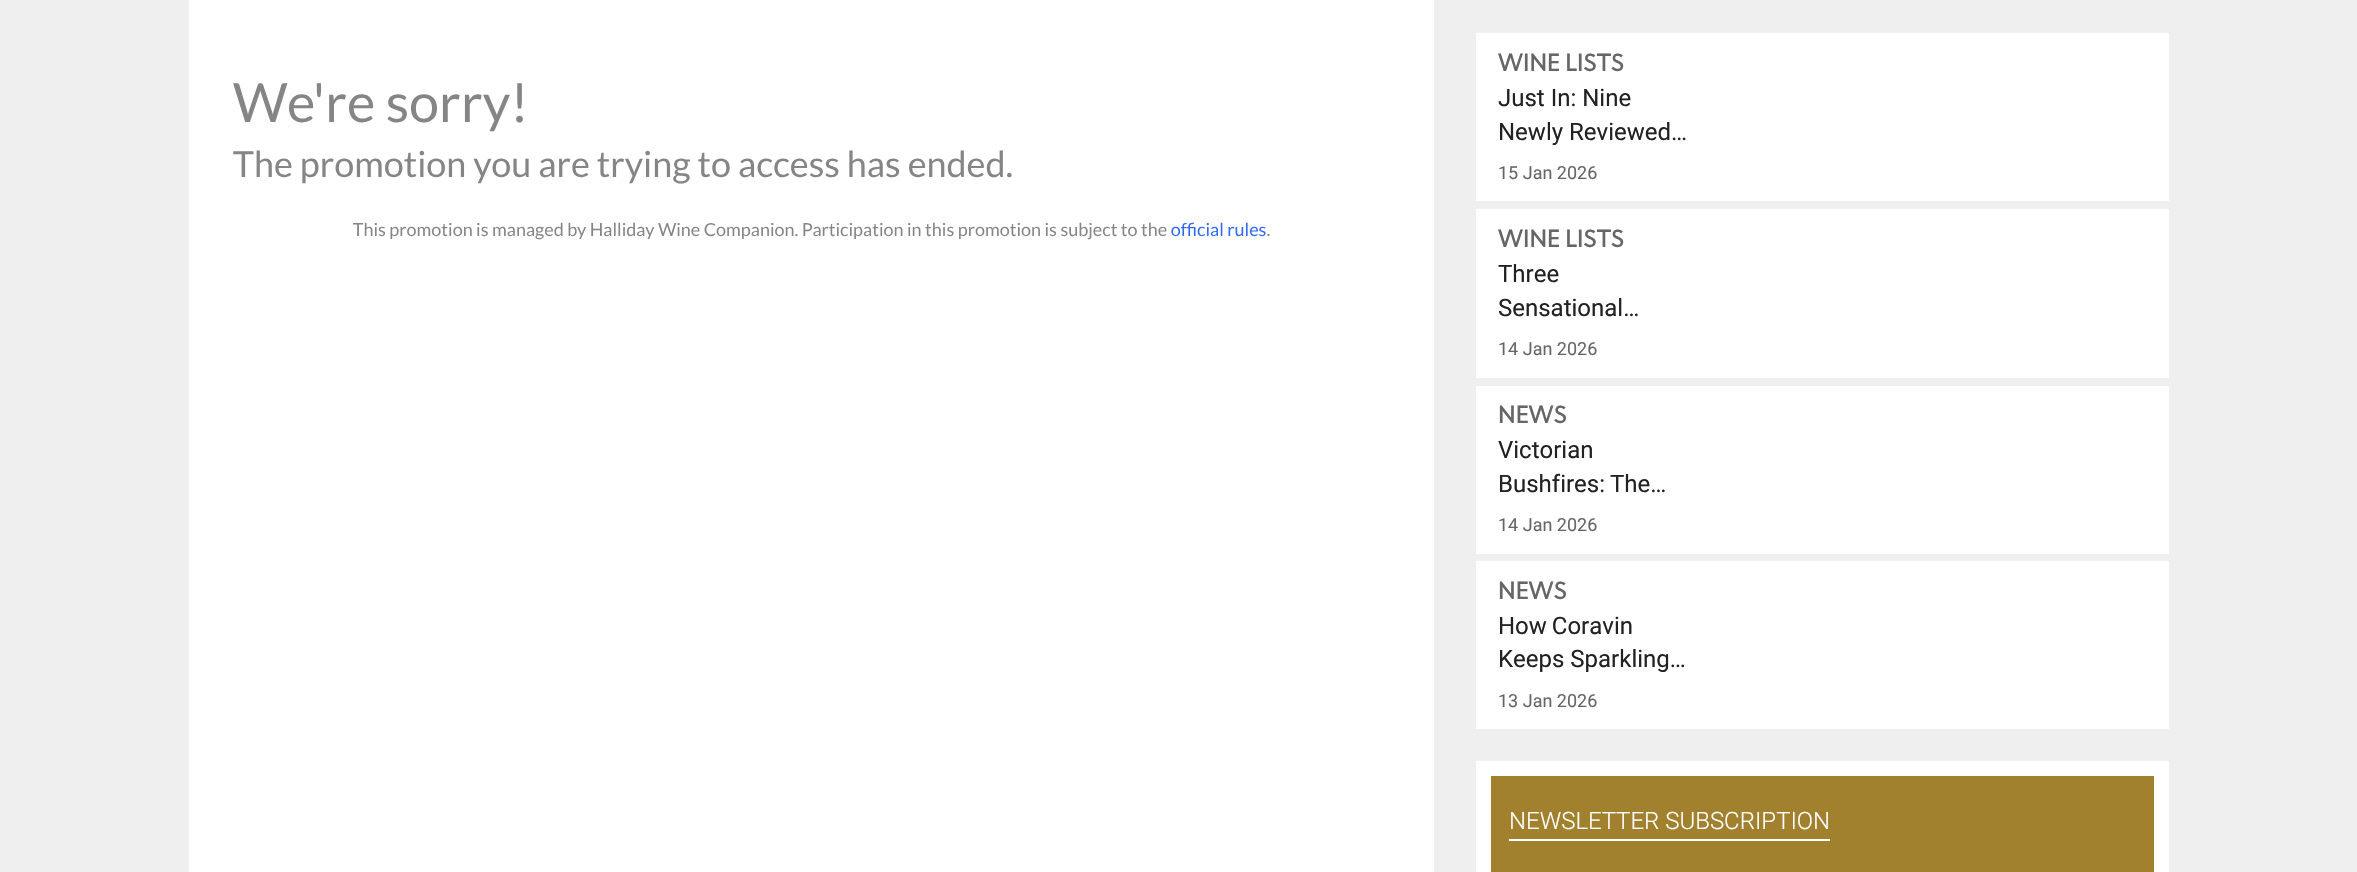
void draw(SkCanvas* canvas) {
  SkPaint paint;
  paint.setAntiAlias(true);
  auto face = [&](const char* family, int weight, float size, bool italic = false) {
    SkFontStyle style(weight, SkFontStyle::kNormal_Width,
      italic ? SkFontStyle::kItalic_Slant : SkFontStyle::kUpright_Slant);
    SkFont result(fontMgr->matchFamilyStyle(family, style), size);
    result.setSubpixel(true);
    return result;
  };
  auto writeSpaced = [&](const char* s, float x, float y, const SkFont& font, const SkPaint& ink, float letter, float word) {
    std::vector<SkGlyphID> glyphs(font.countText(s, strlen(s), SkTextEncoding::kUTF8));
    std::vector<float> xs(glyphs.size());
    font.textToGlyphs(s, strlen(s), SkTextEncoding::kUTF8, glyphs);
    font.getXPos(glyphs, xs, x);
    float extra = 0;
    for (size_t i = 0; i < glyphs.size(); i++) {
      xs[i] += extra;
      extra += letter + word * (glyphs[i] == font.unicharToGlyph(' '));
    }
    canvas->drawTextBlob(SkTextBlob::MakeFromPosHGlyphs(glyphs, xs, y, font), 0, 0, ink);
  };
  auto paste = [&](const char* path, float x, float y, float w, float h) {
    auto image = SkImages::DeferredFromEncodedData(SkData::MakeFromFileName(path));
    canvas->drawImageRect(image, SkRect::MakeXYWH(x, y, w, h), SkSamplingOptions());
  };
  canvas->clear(0xffefefef);
  paste("img/1.png", 189, 0, 1245, 872);
  {
    const struct { float x, y, w, h; SkColor color; } items[] = {
      {1476, 33, 693, 168, 0xffffffff},
      {1476, 209, 693, 169, 0xffffffff},
      {1476, 386, 693, 168, 0xffffffff},
      {1476, 561, 693, 168, 0xffffffff},
    };
    for (auto [x, y, w, h, color] : items) {
      paint.setColor(color);
      canvas->drawRect(SkRect::MakeXYWH(x, y, w, h), paint);
    }
  }
  paint.setColor(0xffa1802e);
  canvas->drawRect(SkRect::MakeXYWH(1483.5f, 768.5f, 678, 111), paint);
  paint.setStroke(true);
  paint.setStrokeWidth(15);
  paint.setColor(0xffffffff);
  canvas->drawRect(SkRect::MakeXYWH(1483.5f, 768.5f, 678, 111), paint);
  paint.setStroke(false);
  canvas->drawRect(SkRect::MakeXYWH(1509, 839, 321, 2), paint);
  auto f0 = face("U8", 500, 22.5f);
  paint.setColor(0xff666666);
  writeSpaced("WINE LISTS", 1498, 71, f0, paint, 0, -1);
  auto f1 = face("Roboto", 400, 24);
  paint.setColor(0xff222222);
  canvas->drawString("Just In: Nine", 1498, 106, f1, paint);
  canvas->drawString("Newly Reviewed…", 1498, 140, f1, paint);
  auto f2 = face("Roboto", 400, 18);
  paint.setColor(0xff666666);
  canvas->drawString("15 Jan 2026", 1498, 179, f2, paint);
  writeSpaced("WINE LISTS", 1498, 247, f0, paint, 0, -1);
  paint.setColor(0xff222222);
  canvas->drawString("Three", 1498, 282, f1, paint);
  canvas->drawString("Sensational…", 1498, 316, f1, paint);
  paint.setColor(0xff666666);
  canvas->drawString("14 Jan 2026", 1498, 355, f2, paint);
  canvas->drawString("NEWS", 1498, 423, f0, paint);
  paint.setColor(0xff222222);
  canvas->drawString("Victorian", 1498, 458, f1, paint);
  writeSpaced("Bushfires: The…", 1498, 492, f1, paint, 0, -1);
  paint.setColor(0xff666666);
  canvas->drawString("14 Jan 2026", 1498, 531, f2, paint);
  canvas->drawString("NEWS", 1498, 599, f0, paint);
  paint.setColor(0xff222222);
  writeSpaced("How Coravin", 1498, 634, f1, paint, 0, -1);
  canvas->drawString("Keeps Sparkling…", 1498, 667, f1, paint);
  paint.setColor(0xff666666);
  canvas->drawString("13 Jan 2026", 1498, 707, f2, paint);
  auto f3 = face("Roboto", 300, 24);
  paint.setColor(0xffffffff);
  canvas->drawString("NEWSLETTER SUBSCRIPTION", 1509, 829, f3, paint);
}
